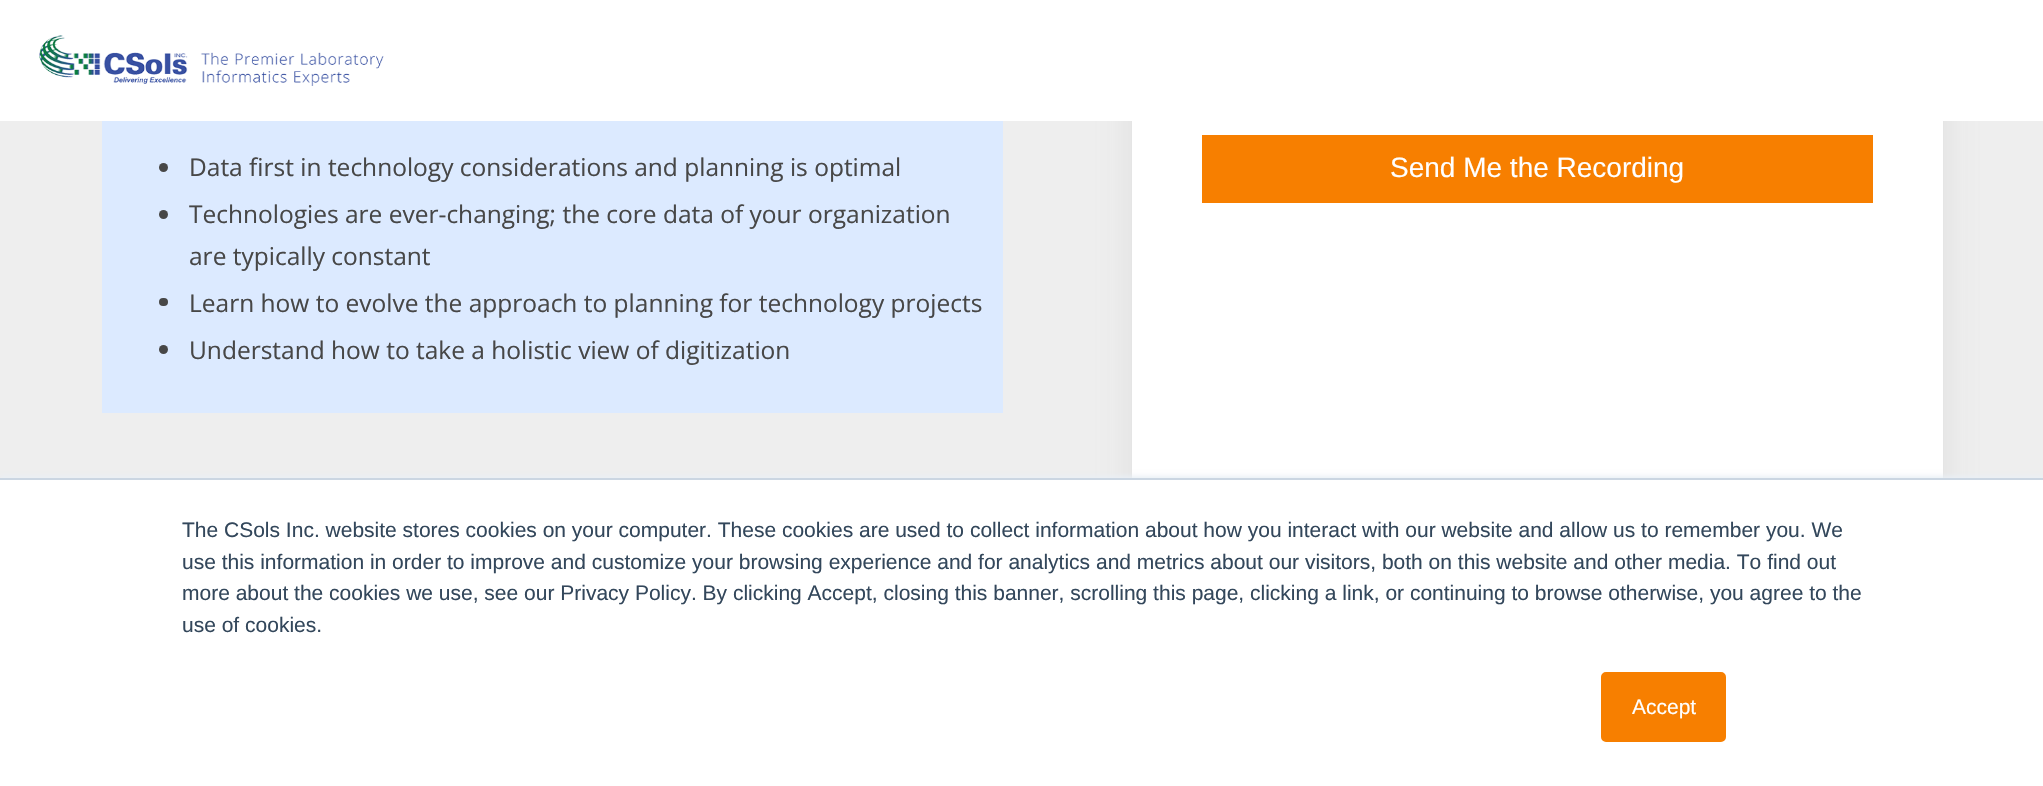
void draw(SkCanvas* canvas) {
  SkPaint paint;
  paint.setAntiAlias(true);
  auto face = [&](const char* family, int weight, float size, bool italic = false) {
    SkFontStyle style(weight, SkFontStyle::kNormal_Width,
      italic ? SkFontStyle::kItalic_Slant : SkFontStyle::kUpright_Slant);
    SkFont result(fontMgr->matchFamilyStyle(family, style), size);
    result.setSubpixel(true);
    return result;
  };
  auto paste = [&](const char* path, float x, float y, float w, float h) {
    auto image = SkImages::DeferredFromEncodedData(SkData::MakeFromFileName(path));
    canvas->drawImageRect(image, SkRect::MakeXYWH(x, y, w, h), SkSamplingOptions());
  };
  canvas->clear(0xffeeeeee);
  paint.setColor(0x40ababab);
  paint.setMaskFilter(SkMaskFilter::MakeBlur(kNormal_SkBlurStyle, 17.5f));
  canvas->drawRect(SkRect::MakeXYWH(1132, -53, 811, 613), paint);
  paint.setMaskFilter(nullptr);
  paint.setColor(0xffffffff);
  canvas->drawRect(SkRect::MakeXYWH(0, 0, 2043, 121), paint);
  paste("img/1.png", 39, 35, 345, 51);
  paint.setColor(0xffdceaff);
  canvas->drawRect(SkRect::MakeXYWH(102, 121, 901, 292), paint);
  paint.setColor(0xff474747);
  canvas->drawCircle(163.5f, 167.5f, 4.5f, paint);
  canvas->drawCircle(163.5f, 214.5f, 4.5f, paint);
  canvas->drawRoundRect(SkRect::MakeXYWH(159, 298, 9, 8), 4, 4, paint);
  canvas->drawCircle(163.5f, 349.5f, 4.5f, paint);
  paint.setColor(0xffffffff);
  canvas->drawRect(SkRect::MakeXYWH(1132, 121, 811, 357), paint);
  paint.setColor(0xfff77f00);
  canvas->drawRect(SkRect::MakeXYWH(1202, 135, 671, 68), paint);
  paint.setColor(0xffeaf0f6);
  paint.setMaskFilter(SkMaskFilter::MakeBlur(kNormal_SkBlurStyle, 2.5f));
  canvas->drawRect(SkRect::MakeXYWH(0, 476, 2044, 310), paint);
  paint.setMaskFilter(nullptr);
  paint.setColor(0xffffffff);
  canvas->drawRect(SkRect::MakeXYWH(0, 480, 2043, 306), paint);
  paint.setColor(0xffcbd6e2);
  canvas->drawRect(SkRect::MakeXYWH(0, 478, 2043, 2), paint);
  paint.setColor(0xfff77f00);
  canvas->drawRoundRect(SkRect::MakeXYWH(1602, 673, 123, 68), 4, 4, paint);
  paint.setStroke(true);
  paint.setStrokeWidth(2);
  canvas->drawRoundRect(SkRect::MakeXYWH(1602, 673, 123, 68), 4, 4, paint);
  auto f0 = face("Open Sans", 400, 24.5f);
  paint.setStroke(false);
  paint.setColor(0xff474747);
  {
    const struct { const char* s; float x, y; } items[] = {
      {"Data first in technology considerations and planning is optimal", 189, 176},
      {"Technologies are ever-changing; the core data of your organization", 189, 223},
      {"are typically constant", 189, 265},
      {"Learn how to evolve the approach to planning for technology projects", 189, 312},
      {"Understand how to take a holistic view of digitization", 189, 359},
    };
    for (auto [s, x, y] : items) {
      canvas->drawString(s, x, y, f0, paint);
    }
  }
  auto f1 = face("Liberation Sans", 400, 28);
  paint.setColor(0xffffffff);
  canvas->drawString("Send Me the Recording", 1390, 177, f1, paint);
  auto f2 = face("Liberation Sans", 400, 21);
  paint.setColor(0xff33475b);
  {
    const struct { const char* s; float x, y; } items[] = {
      {"The CSols Inc. website stores cookies on your computer. These cookies are used to collect information about how you interact with our website and allow us to remember you. We", 182, 537},
      {"use this information in order to improve and customize your browsing experience and for analytics and metrics about our visitors, both on this website and other media. To find out", 182, 569},
      {"more about the cookies we use, see our Privacy Policy. By clicking Accept, closing this banner, scrolling this page, clicking a link, or continuing to browse otherwise, you agree to the", 182, 600},
      {"use of cookies.", 182, 632},
    };
    for (auto [s, x, y] : items) {
      canvas->drawString(s, x, y, f2, paint);
    }
  }
  paint.setColor(0xffffffff);
  canvas->drawString("Accept", 1632, 714, f2, paint);
}
